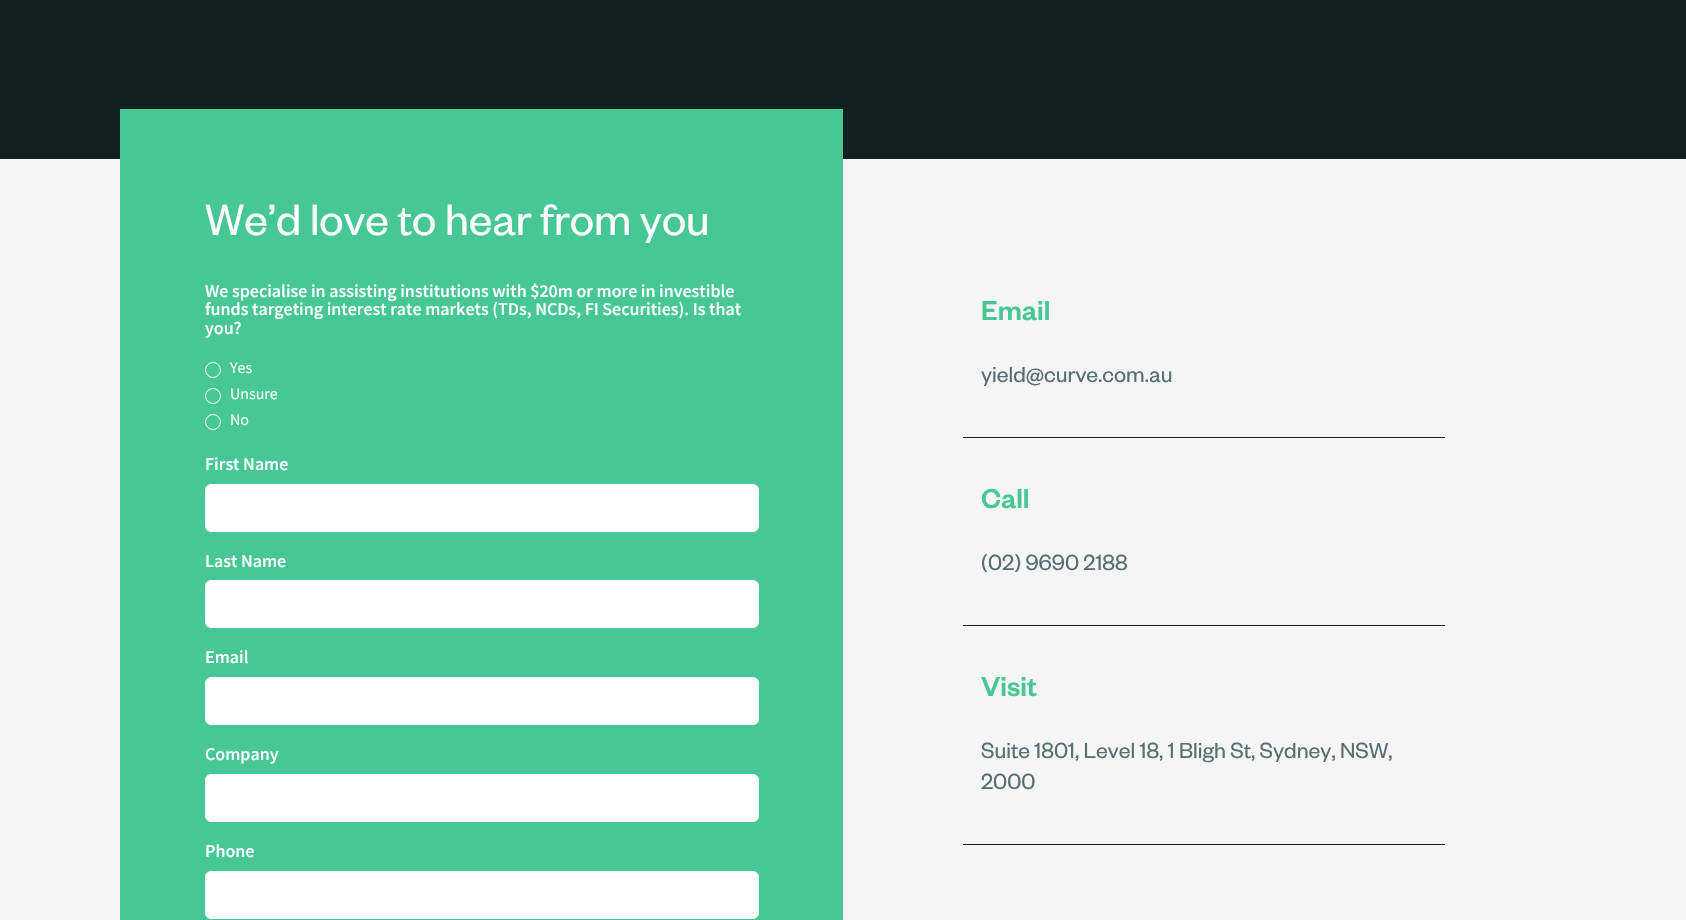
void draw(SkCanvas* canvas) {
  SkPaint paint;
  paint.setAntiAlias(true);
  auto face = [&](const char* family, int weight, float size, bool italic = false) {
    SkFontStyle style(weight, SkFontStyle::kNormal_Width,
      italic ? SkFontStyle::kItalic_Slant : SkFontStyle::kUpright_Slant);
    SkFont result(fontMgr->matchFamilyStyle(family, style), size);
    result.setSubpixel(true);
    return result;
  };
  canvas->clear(0xff12211f);
  paint.setColor(0xfff5f5f5);
  canvas->drawRect(SkRect::MakeXYWH(0, 159, 1686, 761), paint);
  paint.setColor(0xff47c794);
  canvas->drawRect(SkRect::MakeXYWH(120, 109, 723, 811), paint);
  paint.setStroke(true);
  paint.setStrokeWidth(1);
  paint.setColor(0xffffffff);
  canvas->drawCircle(213, 370, 7.5f, paint);
  canvas->drawCircle(213, 396, 7.5f, paint);
  canvas->drawCircle(213, 422, 7.5f, paint);
  paint.setStroke(false);
  canvas->drawRoundRect(SkRect::MakeXYWH(205.5f, 484.5f, 553, 47), 5.5f, 5.5f, paint);
  paint.setStroke(true);
  canvas->drawRoundRect(SkRect::MakeXYWH(205.5f, 484.5f, 553, 47), 5.5f, 5.5f, paint);
  paint.setStroke(false);
  canvas->drawRoundRect(SkRect::MakeXYWH(205.5f, 580.5f, 553, 47), 5.5f, 5.5f, paint);
  paint.setStroke(true);
  canvas->drawRoundRect(SkRect::MakeXYWH(205.5f, 580.5f, 553, 47), 5.5f, 5.5f, paint);
  paint.setStroke(false);
  canvas->drawRoundRect(SkRect::MakeXYWH(205.5f, 677.5f, 553, 47), 5.5f, 5.5f, paint);
  paint.setStroke(true);
  canvas->drawRoundRect(SkRect::MakeXYWH(205.5f, 677.5f, 553, 47), 5.5f, 5.5f, paint);
  paint.setStroke(false);
  canvas->drawRoundRect(SkRect::MakeXYWH(205.5f, 774.5f, 553, 47), 5.5f, 5.5f, paint);
  paint.setStroke(true);
  canvas->drawRoundRect(SkRect::MakeXYWH(205.5f, 774.5f, 553, 47), 5.5f, 5.5f, paint);
  paint.setStroke(false);
  canvas->drawRoundRect(SkRect::MakeXYWH(205.5f, 871.5f, 553, 47), 5.5f, 5.5f, paint);
  paint.setStroke(true);
  canvas->drawRoundRect(SkRect::MakeXYWH(205.5f, 871.5f, 553, 47), 5.5f, 5.5f, paint);
  paint.setStroke(false);
  {
    const struct { float x, y, w, h; SkColor color; } items[] = {
      {963, 437, 482, 1, 0xff12211f},
      {963, 625, 482, 1, 0xff12211f},
      {963, 844, 482, 1, 0xff12211f},
    };
    for (auto [x, y, w, h, color] : items) {
      paint.setColor(color);
      canvas->drawRect(SkRect::MakeXYWH(x, y, w, h), paint);
    }
  }
  auto f0 = face("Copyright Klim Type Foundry", 400, 48);
  paint.setColor(0xffffffff);
  canvas->drawString("We’d love to hear from you", 205, 235, f0, paint);
  auto f1 = face("Assistant", 600, 18);
  {
    const struct { const char* s; float x, y; } items[] = {
      {"We specialise in assisting institutions with $20m or more in investible", 205, 297},
      {"funds targeting interest rate markets (TDs, NCDs, FI Securities). Is that", 205, 315},
      {"you?", 205, 334},
    };
    for (auto [s, x, y] : items) {
      canvas->drawString(s, x, y, f1, paint);
    }
  }
  auto f2 = face("Assistant", 400, 16);
  {
    const struct { const char* s; float x, y; } items[] = {
      {"Yes", 230, 373},
      {"Unsure", 230, 399},
      {"No", 230, 425},
    };
    for (auto [s, x, y] : items) {
      canvas->drawString(s, x, y, f2, paint);
    }
  }
  {
    const struct { const char* s; float x, y; } items[] = {
      {"First Name", 205, 470},
      {"Last Name", 205, 567},
      {"Email", 205, 663},
      {"Company", 205, 760},
      {"Phone", 205, 857},
    };
    for (auto [s, x, y] : items) {
      canvas->drawString(s, x, y, f1, paint);
    }
  }
  auto f3 = face("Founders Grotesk", 500, 30);
  paint.setColor(0xff47c794);
  canvas->drawString("Email", 981, 320, f3, paint);
  auto f4 = face("Copyright Klim Type Foundry", 400, 24);
  paint.setColor(0xff576e73);
  canvas->drawString("yield@curve.com.au", 981, 382, f4, paint);
  paint.setColor(0xff47c794);
  canvas->drawString("Call", 981, 508, f3, paint);
  paint.setColor(0xff576e73);
  canvas->drawString("(02) 9690 2188", 981, 570, f4, paint);
  paint.setColor(0xff47c794);
  canvas->drawString("Visit", 981, 696, f3, paint);
  paint.setColor(0xff576e73);
  canvas->drawString("Suite 1801, Level 18, 1 Bligh St, Sydney, NSW,", 981, 758, f4, paint);
  canvas->drawString("2000", 981, 789, f4, paint);
}
